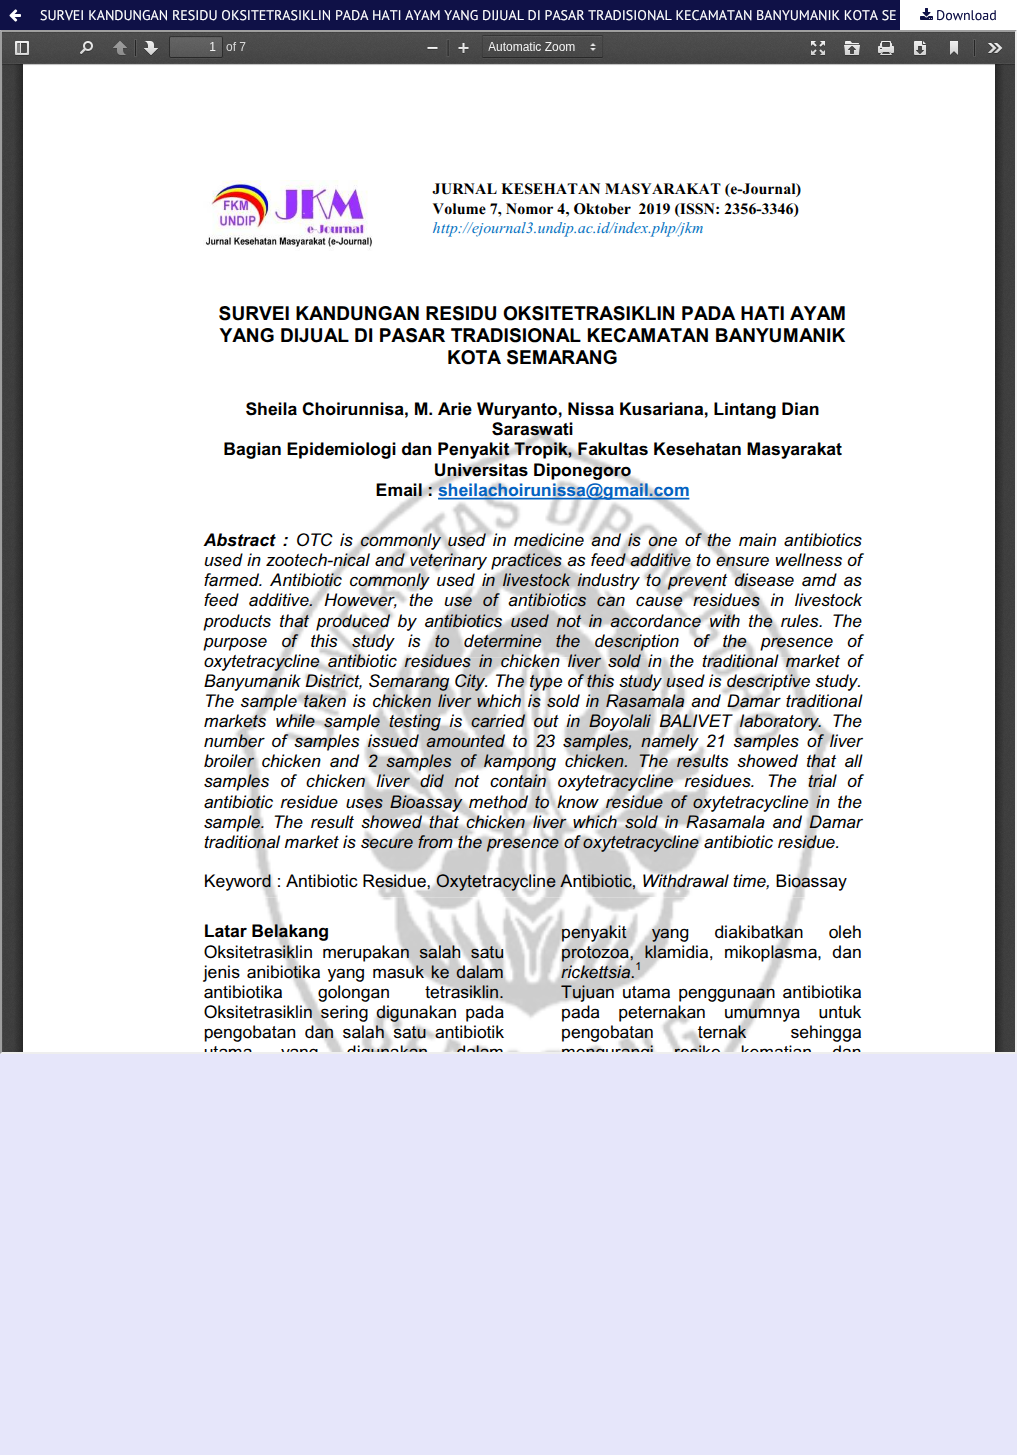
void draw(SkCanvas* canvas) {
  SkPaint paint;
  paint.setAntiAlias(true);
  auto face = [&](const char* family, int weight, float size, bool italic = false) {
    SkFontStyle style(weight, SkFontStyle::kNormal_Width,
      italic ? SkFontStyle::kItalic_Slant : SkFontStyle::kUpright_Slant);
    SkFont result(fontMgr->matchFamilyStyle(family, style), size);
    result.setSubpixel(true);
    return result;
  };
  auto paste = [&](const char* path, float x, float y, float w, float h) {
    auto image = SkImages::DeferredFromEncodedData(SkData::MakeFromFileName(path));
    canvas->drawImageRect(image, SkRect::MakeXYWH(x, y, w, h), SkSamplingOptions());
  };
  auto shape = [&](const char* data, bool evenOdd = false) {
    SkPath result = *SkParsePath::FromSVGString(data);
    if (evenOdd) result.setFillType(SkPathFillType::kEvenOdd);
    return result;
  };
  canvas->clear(0xffe6e6fa);
  paint.setColor(0xff0f1147);
  canvas->drawRect(SkRect::MakeXYWH(0, 0, 900, 30), paint);
  paste("img/1.png", 9, 9, 12, 13);
  paint.setColor(0xffffffff);
  canvas->drawRect(SkRect::MakeXYWH(900, 0, 117, 30), paint);
  paste("img/2.png", 920, 8, 13, 12);
  paint.setColor(0xff9f9f9f);
  canvas->drawPath(shape("M0 30H1017L1015 32H2Z"), paint);
  paint.setColor(0xffeeeeee);
  canvas->drawPath(shape("M1017 30V1054L1015 1052V32Z"), paint);
  canvas->drawPath(shape("M1017 1054H0L2 1052H1015Z"), paint);
  paint.setColor(0xff9f9f9f);
  canvas->drawPath(shape("M0 1054V30L2 32V1052Z"), paint);
  paste("img/3.png", 2, 32, 1013, 1020);
  auto f0 = face("PT Sans", 400, 14);
  paint.setColor(0xffffffff);
  canvas->drawString("SURVEI KANDUNGAN RESIDU OKSITETRASIKLIN PADA HATI AYAM YANG DIJUAL DI PASAR TRADISIONAL KECAMATAN BANYUMANIK KOTA SE", 40, 20, f0, paint);
  paint.setColor(0xff0f1147);
  canvas->drawString("Download", 936, 20, f0, paint);
}
